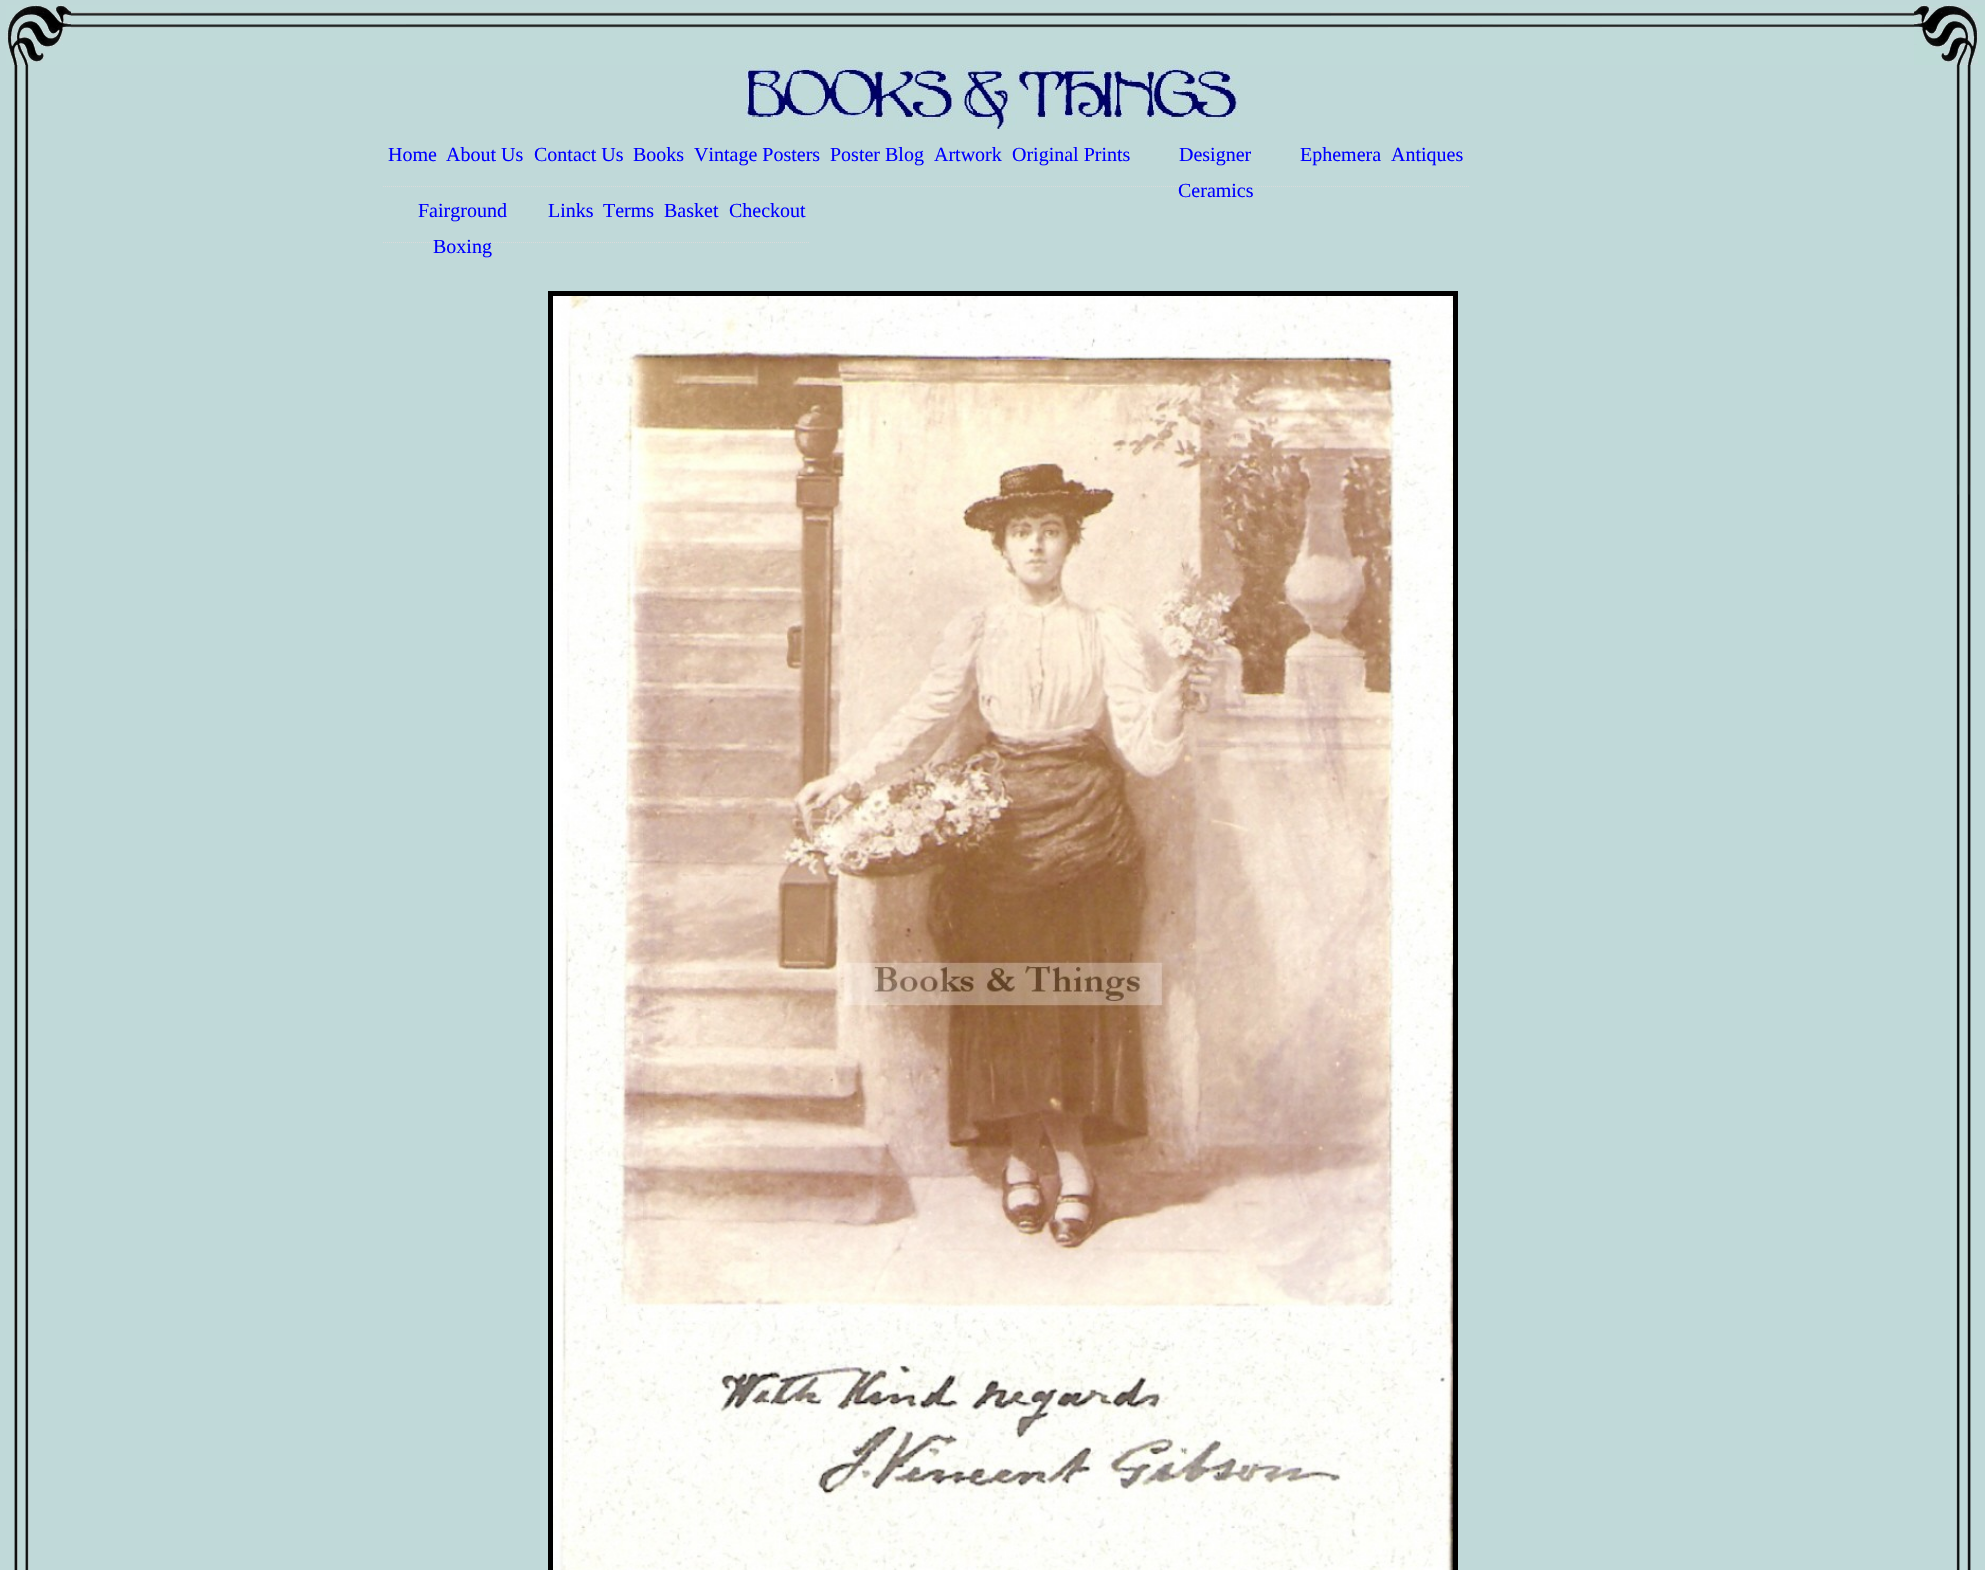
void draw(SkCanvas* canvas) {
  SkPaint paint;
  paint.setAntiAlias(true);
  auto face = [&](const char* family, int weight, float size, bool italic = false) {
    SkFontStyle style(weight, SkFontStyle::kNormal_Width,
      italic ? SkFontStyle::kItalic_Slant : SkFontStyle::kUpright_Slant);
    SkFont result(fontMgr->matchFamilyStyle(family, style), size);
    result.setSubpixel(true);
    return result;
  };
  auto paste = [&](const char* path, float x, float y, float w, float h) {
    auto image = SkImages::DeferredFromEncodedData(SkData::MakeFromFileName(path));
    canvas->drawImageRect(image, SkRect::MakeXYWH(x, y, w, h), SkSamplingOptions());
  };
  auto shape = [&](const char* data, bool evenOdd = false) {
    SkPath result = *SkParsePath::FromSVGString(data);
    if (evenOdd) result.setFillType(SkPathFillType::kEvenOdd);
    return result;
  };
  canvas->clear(0xffc0d9d9);
  paste("img/1.png", 6, 5, 1908, 60);
  paste("img/2.png", 1914, 5, 71, 60);
  paste("img/3.png", 14, 65, 15, 1505);
  paste("img/4.png", 1956, 65, 15, 1505);
  paste("img/5.png", 745, 65, 495, 65);
  paint.setStroke(true);
  paint.setStrokeWidth(1);
  paint.setColor(0xffdadada);
  paint.setPathEffect(SkDashPathEffect::Make({{1, 1}}, 0));
  canvas->drawPath(shape("M383 186.5H441"), paint);
  paint.setPathEffect(nullptr);
  paint.setPathEffect(SkDashPathEffect::Make({{1, 1}}, 0));
  canvas->drawPath(shape("M441 186.5H529"), paint);
  paint.setPathEffect(nullptr);
  paint.setPathEffect(SkDashPathEffect::Make({{1, 1}}, 0));
  canvas->drawPath(shape("M529 186.5H628"), paint);
  paint.setPathEffect(nullptr);
  paint.setPathEffect(SkDashPathEffect::Make({{1, 1}}, 0));
  canvas->drawPath(shape("M628 186.5H689"), paint);
  paint.setPathEffect(nullptr);
  paint.setPathEffect(SkDashPathEffect::Make({{1, 1}}, 0));
  canvas->drawPath(shape("M689 186.5H825"), paint);
  paint.setPathEffect(nullptr);
  paint.setPathEffect(SkDashPathEffect::Make({{1, 1}}, 0));
  canvas->drawPath(shape("M825 186.5H929"), paint);
  paint.setPathEffect(nullptr);
  paint.setPathEffect(SkDashPathEffect::Make({{1, 1}}, 0));
  canvas->drawPath(shape("M929 186.5H1007"), paint);
  paint.setPathEffect(nullptr);
  paint.setPathEffect(SkDashPathEffect::Make({{1, 1}}, 0));
  canvas->drawPath(shape("M1007 186.5H1135"), paint);
  paint.setPathEffect(nullptr);
  paint.setPathEffect(SkDashPathEffect::Make({{1, 1}}, 0));
  canvas->drawPath(shape("M1135 186.5H1295"), paint);
  paint.setPathEffect(nullptr);
  paint.setPathEffect(SkDashPathEffect::Make({{1, 1}}, 0));
  canvas->drawPath(shape("M1295 186.5H1386"), paint);
  paint.setPathEffect(nullptr);
  paint.setPathEffect(SkDashPathEffect::Make({{1, 1}}, 0));
  canvas->drawPath(shape("M1386 186.5H1469"), paint);
  paint.setPathEffect(nullptr);
  paint.setPathEffect(SkDashPathEffect::Make({{1, 1}}, 0));
  canvas->drawPath(shape("M383 242.5H543"), paint);
  paint.setPathEffect(nullptr);
  paint.setPathEffect(SkDashPathEffect::Make({{1, 1}}, 0));
  canvas->drawPath(shape("M543 242.5H598"), paint);
  paint.setPathEffect(nullptr);
  paint.setPathEffect(SkDashPathEffect::Make({{1, 1}}, 0));
  canvas->drawPath(shape("M598 242.5H659"), paint);
  paint.setPathEffect(nullptr);
  paint.setPathEffect(SkDashPathEffect::Make({{1, 1}}, 0));
  canvas->drawPath(shape("M659 242.5H724"), paint);
  paint.setPathEffect(nullptr);
  paint.setPathEffect(SkDashPathEffect::Make({{1, 1}}, 0));
  canvas->drawPath(shape("M724 242.5H810"), paint);
  paint.setPathEffect(nullptr);
  paint.setStrokeWidth(5);
  paint.setColor(0xff000000);
  canvas->drawRect(SkRect::MakeXYWH(550.5f, 293.5f, 905, 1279), paint);
  paste("img/6.png", 553, 296, 900, 1274);
  auto f0 = face("Liberation Serif", 400, 20);
  paint.setStroke(false);
  paint.setColor(0xff0000ff);
  {
    const struct { const char* s; float x, y; } items[] = {
      {"Home", 388, 161},
      {"About Us", 446, 161},
      {"Contact Us", 534, 161},
      {"Books", 633, 161},
      {"Vintage Posters", 694, 161},
      {"Poster Blog", 830, 161},
      {"Artwork", 934, 161},
      {"Original Prints", 1012, 161},
      {"Designer", 1179, 161},
      {"Ceramics", 1178, 197},
      {"Ephemera", 1300, 161},
      {"Antiques", 1391, 161},
      {"Fairground", 418, 217},
      {"Boxing", 433, 253},
      {"Links", 548, 217},
      {"Terms", 603, 217},
      {"Basket", 664, 217},
      {"Checkout", 729, 217},
    };
    for (auto [s, x, y] : items) {
      canvas->drawString(s, x, y, f0, paint);
    }
  }
}
